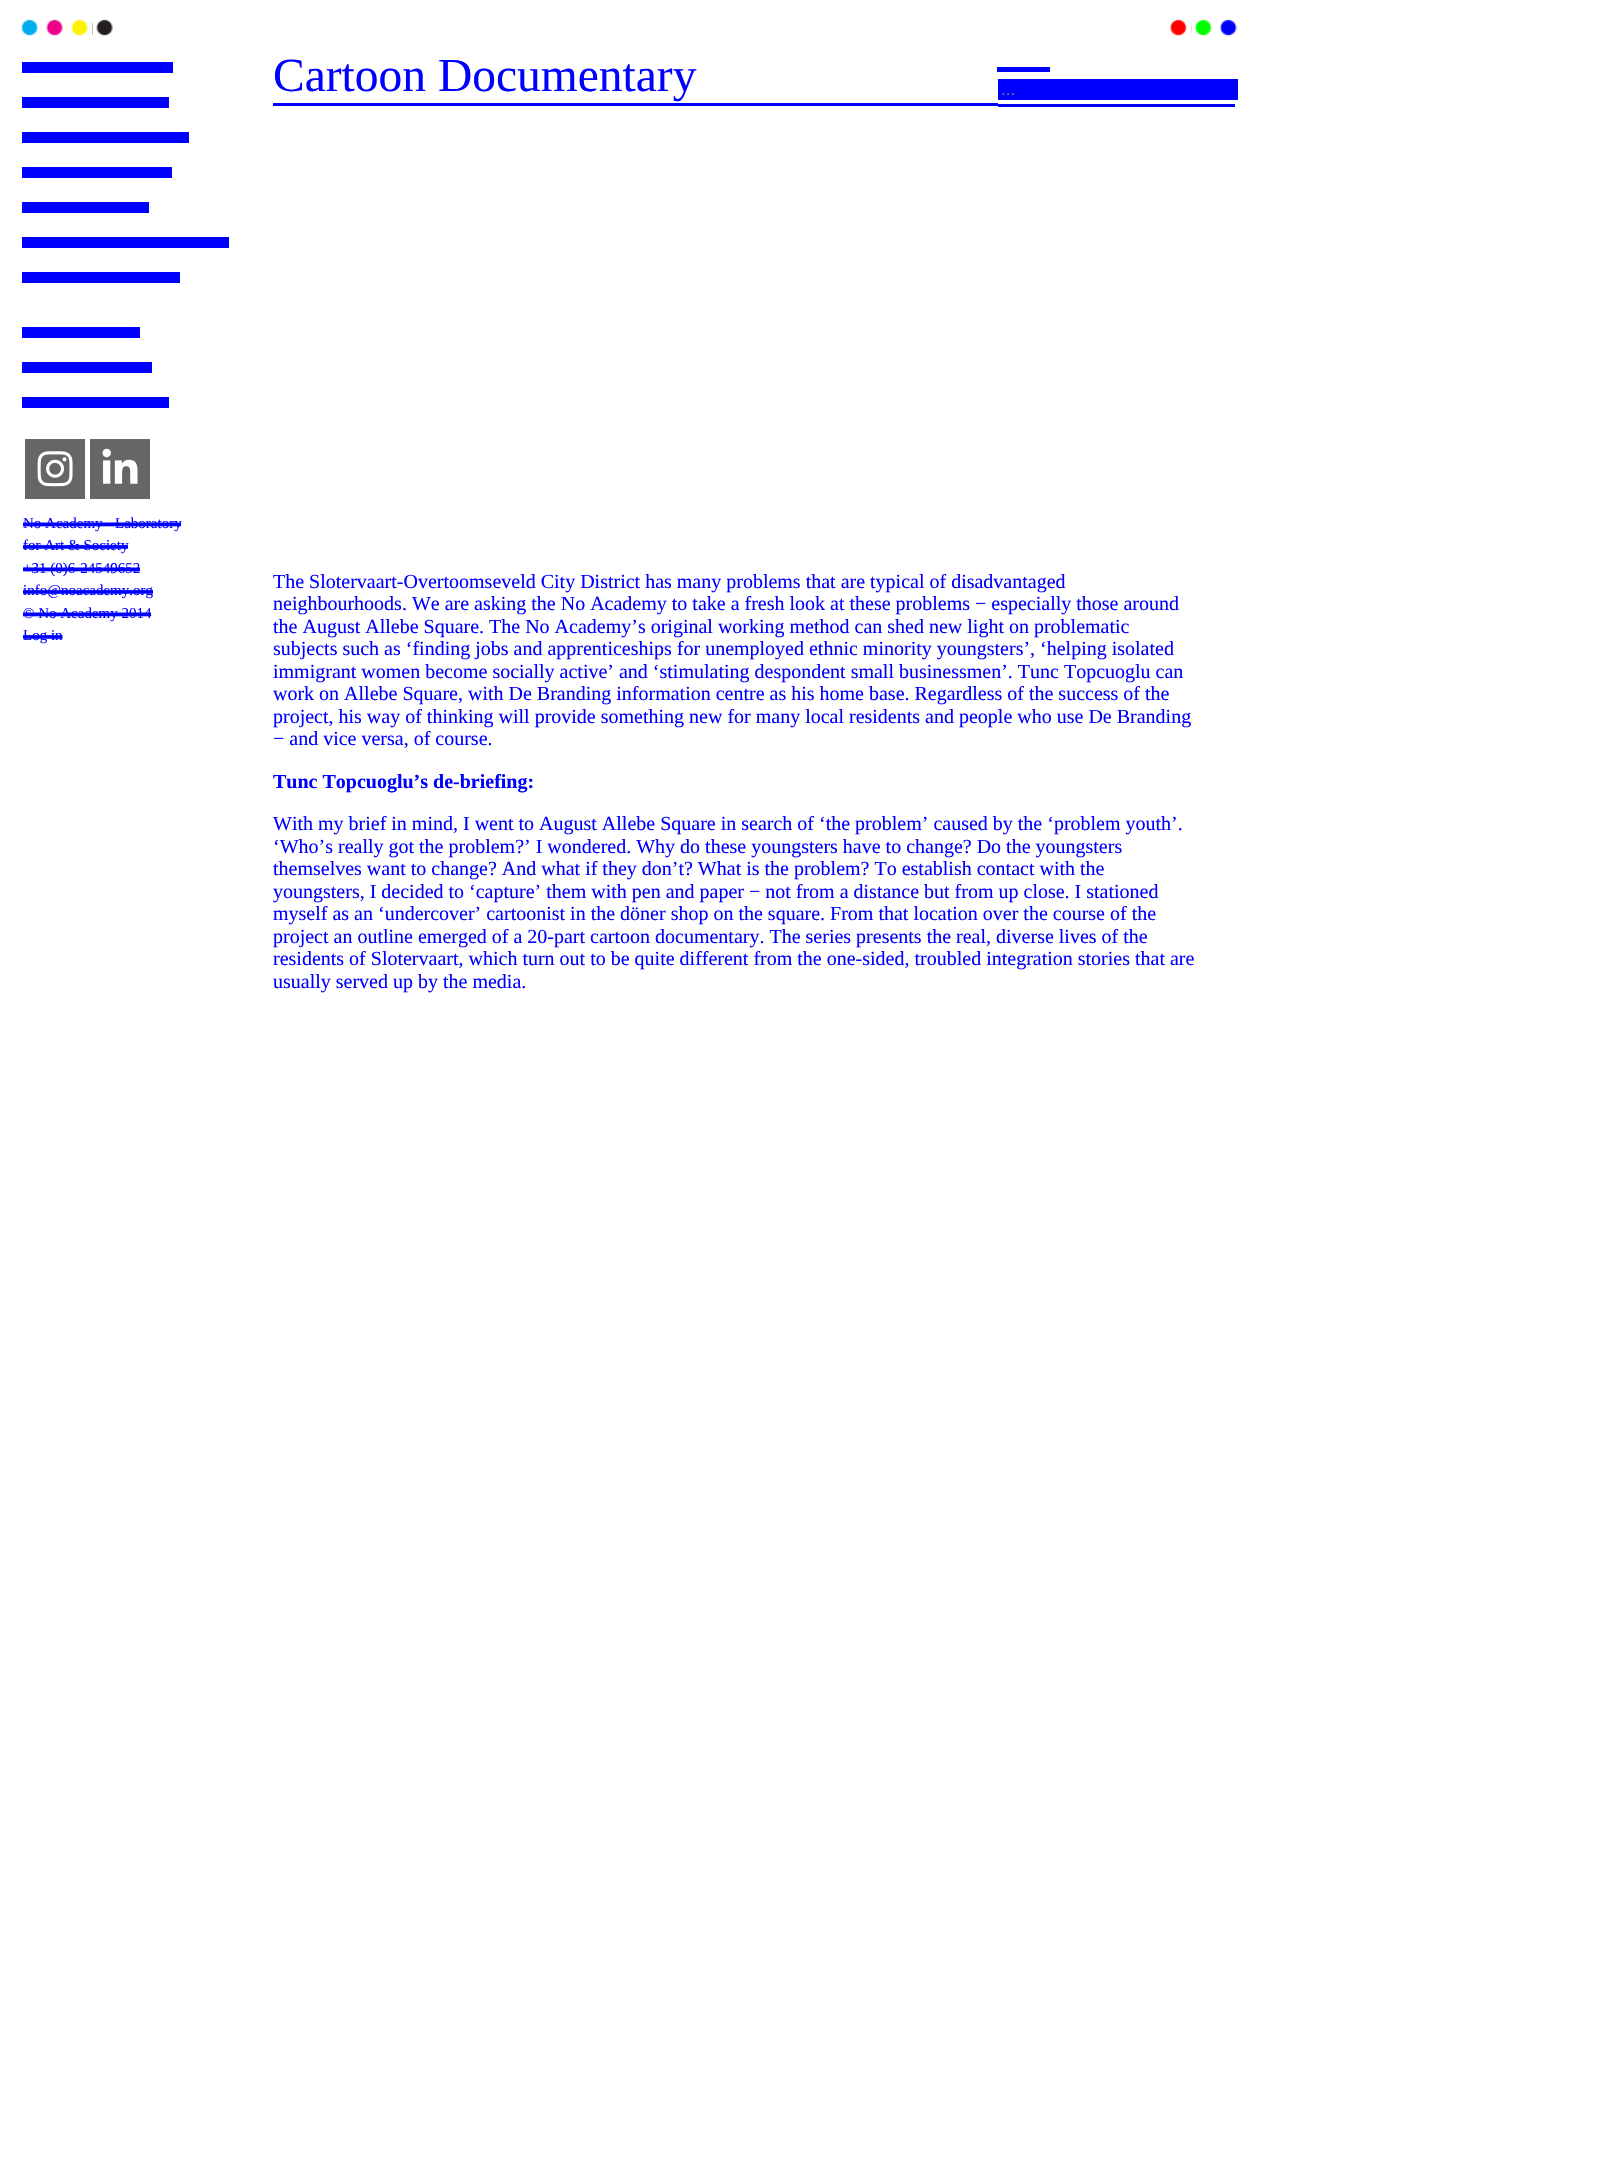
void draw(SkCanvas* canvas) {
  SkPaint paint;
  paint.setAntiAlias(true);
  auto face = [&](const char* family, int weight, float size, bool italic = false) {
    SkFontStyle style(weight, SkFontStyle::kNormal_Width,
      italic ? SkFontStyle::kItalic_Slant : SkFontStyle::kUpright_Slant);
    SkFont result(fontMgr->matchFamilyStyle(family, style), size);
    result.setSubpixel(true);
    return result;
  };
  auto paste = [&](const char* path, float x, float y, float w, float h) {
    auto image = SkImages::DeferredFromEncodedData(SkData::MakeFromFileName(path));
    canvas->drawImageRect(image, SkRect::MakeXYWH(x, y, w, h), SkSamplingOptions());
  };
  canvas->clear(0xffffffff);
  paste("img/1.png", 38, 22, 1181, 15);
  paste("img/2.png", 21, 19, 17, 18);
  paste("img/3.png", 43, 19, 25, 18);
  paste("img/4.png", 67, 19, 26, 18);
  paste("img/5.png", 92, 19, 21, 18);
  paste("img/7.png", 1191, 19, 23, 18);
  paste("img/6.png", 1169, 19, 23, 18);
  paste("img/8.png", 1219, 19, 18, 18);
  {
    const struct { float x, y, w, h; SkColor color; } items[] = {
      {273, 103, 725, 3, 0xff0000ff},
      {998, 104, 237, 3, 0xff0000ff},
      {997, 67, 53, 5, 0xff0000ff},
      {998, 79, 240, 21, 0xff0000ff},
      {22, 62, 151, 11, 0xff0000ff},
      {22, 97, 147, 11, 0xff0000ff},
      {22, 132, 167, 11, 0xff0000ff},
      {22, 167, 150, 11, 0xff0000ff},
      {22, 202, 127, 11, 0xff0000ff},
      {22, 237, 207, 11, 0xff0000ff},
      {22, 272, 158, 11, 0xff0000ff},
      {22, 327, 118, 11, 0xff0000ff},
      {22, 362, 130, 11, 0xff0000ff},
      {22, 397, 147, 11, 0xff0000ff},
      {25, 439, 60, 60, 0xff666666},
    };
    for (auto [x, y, w, h, color] : items) {
      paint.setColor(color);
      canvas->drawRect(SkRect::MakeXYWH(x, y, w, h), paint);
    }
  }
  paste("img/9.png", 37, 451, 36, 36);
  canvas->drawRect(SkRect::MakeXYWH(90, 439, 60, 60), paint);
  paste("img/10.png", 102, 448, 36, 36);
  paste("img/11.png", 23, 522, 158, 117);
  auto f0 = face("Liberation Serif", 400, 47.5f);
  paint.setColor(0xff0000ff);
  canvas->drawString("Cartoon Documentary", 273, 91, f0, paint);
  auto f1 = face("Liberation Sans", 400, 17);
  paint.setColor(0xff757575);
  canvas->drawString("...", 1001, 95, f1, paint);
  auto f2 = face("Liberation Serif", 400, 15);
  paint.setColor(0xff0000ff);
  {
    const struct { const char* s; float x, y; } items[] = {
      {"No Academy - Laboratory", 23, 528},
      {"for Art & Society", 23, 550},
      {"+31 (0)6-24549652", 23, 573},
      {"info@noacademy.org", 23, 595},
      {"© No Academy 2014", 23, 618},
      {"Log in", 23, 640},
    };
    for (auto [s, x, y] : items) {
      canvas->drawString(s, x, y, f2, paint);
    }
  }
  auto f3 = face("Liberation Serif", 400, 20);
  {
    const struct { const char* s; float x, y; } items[] = {
      {"The Slotervaart-Overtoomseveld City District has many problems that are typical of disadvantaged", 273, 588},
      {"neighbourhoods. We are asking the No Academy to take a fresh look at these problems − especially those around", 273, 610},
      {"the August Allebe Square. The No Academy’s original working method can shed new light on problematic", 273, 633},
      {"subjects such as ‘finding jobs and apprenticeships for unemployed ethnic minority youngsters’, ‘helping isolated", 273, 655},
      {"immigrant women become socially active’ and ‘stimulating despondent small businessmen’. Tunc Topcuoglu can", 273, 678},
      {"work on Allebe Square, with De Branding information centre as his home base. Regardless of the success of the", 273, 700},
      {"project, his way of thinking will provide something new for many local residents and people who use De Branding", 273, 723},
      {"− and vice versa, of course.", 273, 745},
    };
    for (auto [s, x, y] : items) {
      canvas->drawString(s, x, y, f3, paint);
    }
  }
  auto f4 = face("Liberation Serif", 700, 20);
  canvas->drawString("Tunc Topcuoglu’s de-briefing:", 273, 788, f4, paint);
  {
    const struct { const char* s; float x, y; } items[] = {
      {"With my brief in mind, I went to August Allebe Square in search of ‘the problem’ caused by the ‘problem youth’.", 273, 830},
      {"‘Who’s really got the problem?’ I wondered. Why do these youngsters have to change? Do the youngsters", 273, 853},
      {"themselves want to change? And what if they don’t? What is the problem? To establish contact with the", 273, 875},
      {"youngsters, I decided to ‘capture’ them with pen and paper − not from a distance but from up close. I stationed", 273, 898},
      {"myself as an ‘undercover’ cartoonist in the döner shop on the square. From that location over the course of the", 273, 920},
      {"project an outline emerged of a 20-part cartoon documentary. The series presents the real, diverse lives of the", 273, 943},
      {"residents of Slotervaart, which turn out to be quite different from the one-sided, troubled integration stories that are", 273, 965},
      {"usually served up by the media.", 273, 988},
    };
    for (auto [s, x, y] : items) {
      canvas->drawString(s, x, y, f3, paint);
    }
  }
}
